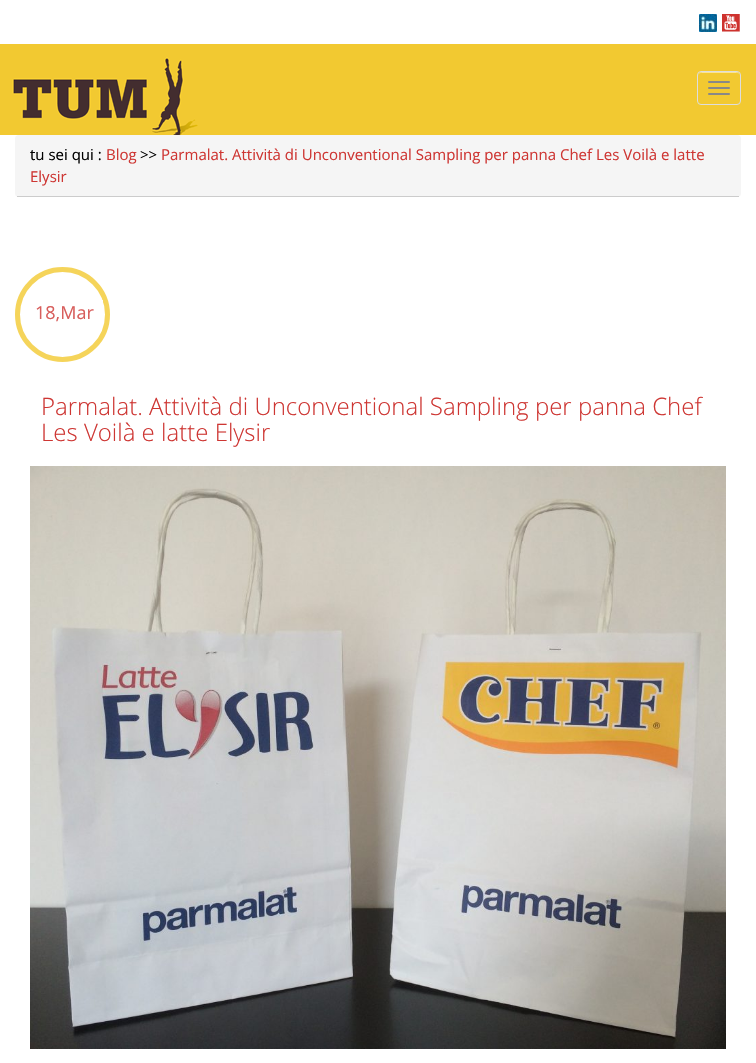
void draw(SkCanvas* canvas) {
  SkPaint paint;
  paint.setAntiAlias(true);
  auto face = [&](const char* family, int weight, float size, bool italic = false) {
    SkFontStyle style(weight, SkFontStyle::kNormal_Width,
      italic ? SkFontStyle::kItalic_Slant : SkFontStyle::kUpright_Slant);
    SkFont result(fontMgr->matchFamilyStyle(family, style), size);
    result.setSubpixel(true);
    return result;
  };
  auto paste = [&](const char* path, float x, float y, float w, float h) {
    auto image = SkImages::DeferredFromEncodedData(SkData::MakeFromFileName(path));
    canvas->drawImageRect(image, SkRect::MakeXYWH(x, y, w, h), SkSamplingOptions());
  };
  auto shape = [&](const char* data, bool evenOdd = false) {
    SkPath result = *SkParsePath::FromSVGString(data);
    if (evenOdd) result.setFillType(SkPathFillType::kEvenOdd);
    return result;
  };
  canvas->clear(0xffffffff);
  paste("img/1.png", 699, 14, 18, 18);
  paste("img/2.png", 722, 14, 18, 18);
  paint.setColor(0xfff2c931);
  canvas->drawRect(SkRect::MakeXYWH(0, 44, 756, 91), paint);
  paste("img/3.png", 12, 57, 186, 78);
  paint.setColor(0xfff9e498);
  canvas->drawPath(shape("M701 73H737C739 73 740 74 740 76C740 71 735 72 731 72H707C703 72 698 71 698 76C698 74 699 73 701 73Z"), paint);
  paint.setStroke(true);
  paint.setStrokeWidth(1);
  paint.setColor(0xffdddddd);
  canvas->drawRoundRect(SkRect::MakeXYWH(697.5f, 71.5f, 43, 33), 3.5f, 3.5f, paint);
  paint.setStroke(false);
  paint.setColor(0xff888888);
  canvas->drawRoundRect(SkRect::MakeXYWH(708, 81, 22, 2), 1, 1, paint);
  canvas->drawRoundRect(SkRect::MakeXYWH(708, 87, 22, 2), 1, 1, paint);
  canvas->drawRoundRect(SkRect::MakeXYWH(708, 93, 22, 2), 1, 1, paint);
  paint.setColor(0xfff5f5f5);
  canvas->drawRoundRect(SkRect::MakeXYWH(15, 135, 726, 62), 4, 4, paint);
  paint.setColor(0xffcccccc);
  canvas->drawRect(SkRect::MakeXYWH(17, 196, 722, 1), paint);
  paint.setStroke(true);
  paint.setStrokeWidth(5);
  paint.setColor(0xfff5d45a);
  canvas->drawCircle(62.5f, 314.5f, 45, paint);
  paint.setStroke(false);
  paint.setColor(0xffffffff);
  canvas->drawRect(SkRect::MakeXYWH(102, 300, 1, 2), paint);
  paste("img/4.png", 30, 466, 696, 583);
  auto f0 = face("Open Sans", 400, 15);
  paint.setColor(0xff000000);
  canvas->drawString("tu sei qui :", 30, 160, f0, paint);
  paint.setColor(0xffce3633);
  canvas->drawString("Blog", 106, 160, f0, paint);
  paint.setColor(0xff000000);
  canvas->drawString(">>", 140, 160, f0, paint);
  paint.setColor(0xffce3633);
  canvas->drawString("Parmalat. Attività di Unconventional Sampling per panna Chef Les Voilà e latte", 161, 160, f0, paint);
  canvas->drawString("Elysir", 30, 182, f0, paint);
  auto f1 = face("Open Sans", 400, 18);
  paint.setColor(0xffd85e5c);
  canvas->drawString("18,Mar", 35, 319, f1, paint);
  auto f2 = face("Open Sans", 300, 24);
  paint.setColor(0xffce3633);
  canvas->drawString("Parmalat. Attività di Unconventional Sampling per panna Chef", 41, 415, f2, paint);
  canvas->drawString("Les Voilà e latte Elysir", 41, 441, f2, paint);
}
